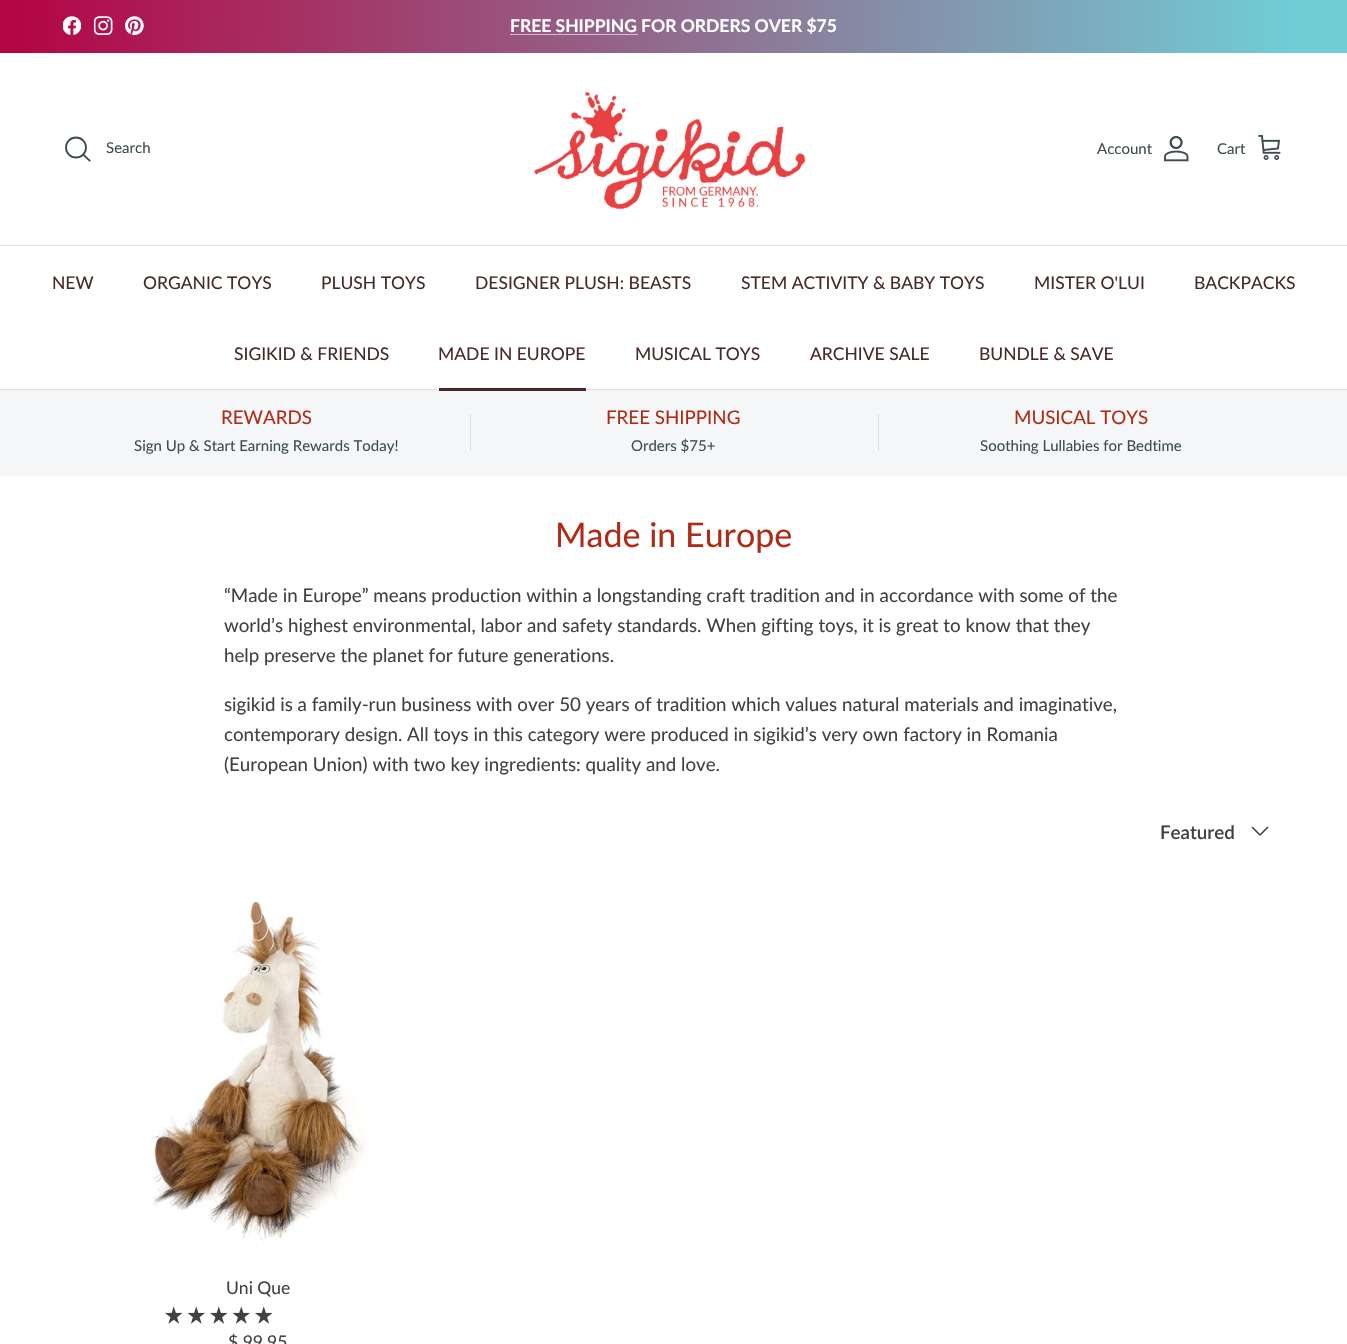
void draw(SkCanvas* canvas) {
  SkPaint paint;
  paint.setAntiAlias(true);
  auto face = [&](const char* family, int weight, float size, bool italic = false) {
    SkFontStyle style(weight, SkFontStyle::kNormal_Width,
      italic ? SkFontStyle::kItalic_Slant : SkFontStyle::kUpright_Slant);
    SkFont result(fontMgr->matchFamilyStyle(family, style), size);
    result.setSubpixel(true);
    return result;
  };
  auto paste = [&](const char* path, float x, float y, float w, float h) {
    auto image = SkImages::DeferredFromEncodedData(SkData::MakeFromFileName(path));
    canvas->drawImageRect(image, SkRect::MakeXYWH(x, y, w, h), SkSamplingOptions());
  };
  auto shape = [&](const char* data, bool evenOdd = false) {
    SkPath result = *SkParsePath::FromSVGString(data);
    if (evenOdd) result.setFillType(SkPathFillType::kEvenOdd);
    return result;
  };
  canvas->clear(0xffffffff);
  {
    const SkColor colors[] = {0xffb40544, 0xff70cdd6};
    const float stops[] = {0.01f, 0.96f};
    const SkPoint ends[] = {{-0.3f, 14}, {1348, 38}};
    paint.setShader(SkGradientShader::MakeLinear(ends, colors, stops, 2, SkTileMode::kClamp));
    paint.setAlpha(255);
  }
  canvas->drawRect(SkRect::MakeXYWH(0, 0, 1347, 53), paint);
  {
    const SkColor colors[] = {0xffe19bb4, 0xffc6ebef};
    const float stops[] = {0.01f, 0.96f};
    const SkPoint ends[] = {{-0.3f, 14}, {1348, 38}};
    paint.setShader(SkGradientShader::MakeLinear(ends, colors, stops, 2, SkTileMode::kClamp));
    paint.setAlpha(255);
  }
  canvas->drawRect(SkRect::MakeXYWH(556, 34, 82, 1), paint);
  canvas->drawRect(SkRect::MakeXYWH(510, 34, 41, 1), paint);
  paste("img/1.png", 63, 16, 18, 19);
  paste("img/2.png", 94, 16, 19, 19);
  paste("img/3.png", 125, 16, 19, 19);
  paint.setShader(nullptr);
  paint.setColor(0xffd5bdcd);
  canvas->drawRect(SkRect::MakeXYWH(551, 34, 5, 1), paint);
  paint.setColor(0xffebdddd);
  canvas->drawRect(SkRect::MakeXYWH(0, 245, 1347, 1), paint);
  paint.setStroke(true);
  paint.setStrokeWidth(1.9f);
  paint.setColor(0xff3d4c4f);
  canvas->drawCircle(76, 147.5f, 10, paint);
  paint.setStrokeCap(SkPaint::kSquare_Cap);
  canvas->drawPath(shape("M83.5 155L89.5 160.5"), paint);
  paste("img/4.png", 533, 92, 273, 121);
  paste("img/5.png", 1164, 136, 25, 26);
  paste("img/6.png", 1258, 135, 23, 25);
  paint.setStroke(false);
  {
    const struct { float x, y, w, h; SkColor color; } items[] = {
      {0, 389, 1347, 1, 0xffebdddd},
      {0, 390, 1347, 86, 0xfff4f6f8},
      {439, 388, 147, 3, 0xff472929},
      {470, 414, 1, 37, 0xffd9dddf},
      {878, 414, 1, 37, 0xffd9dddf},
    };
    for (auto [x, y, w, h, color] : items) {
      paint.setColor(color);
      canvas->drawRect(SkRect::MakeXYWH(x, y, w, h), paint);
    }
  }
  paint.setStroke(true);
  paint.setStrokeWidth(1.6f);
  paint.setStrokeCap(SkPaint::kRound_Cap);
  paint.setStrokeJoin(SkPaint::kRound_Join);
  paint.setColor(0xff424141);
  canvas->drawPath(shape("M1252.5 827.5L1260 835L1267.5 827.5"), paint);
  paste("img/7.png", 151, 901, 215, 342);
  paste("img/8.png", 165, 1306, 18, 18);
  paste("img/9.png", 187, 1306, 18, 18);
  paste("img/8.png", 210, 1306, 18, 18);
  paste("img/9.png", 232, 1306, 18, 18);
  paste("img/8.png", 255, 1306, 18, 18);
  auto f0 = face("Lato", 700, 17.5f);
  paint.setStroke(false);
  paint.setColor(0xffffffff);
  canvas->drawString("FREE SHIPPING FOR ORDERS OVER $75", 510, 32, f0, paint);
  auto f1 = face("Lato", 400, 15);
  paint.setColor(0xff3d4c4f);
  {
    const struct { const char* s; float x, y; } items[] = {
      {"Search", 106, 153},
      {"Account", 1097, 154},
      {"Cart", 1217, 154},
    };
    for (auto [s, x, y] : items) {
      canvas->drawString(s, x, y, f1, paint);
    }
  }
  auto f2 = face("Lato", 400, 17.5f);
  paint.setColor(0xff472929);
  {
    const struct { const char* s; float x, y; } items[] = {
      {"NEW", 52, 289},
      {"ORGANIC TOYS", 143, 289},
      {"PLUSH TOYS", 321, 289},
      {"DESIGNER PLUSH: BEASTS", 475, 289},
      {"STEM ACTIVITY & BABY TOYS", 741, 289},
      {"MISTER O'LUI", 1034, 289},
      {"BACKPACKS", 1194, 289},
      {"SIGIKID & FRIENDS", 234, 360},
      {"MADE IN EUROPE", 438, 360},
      {"MUSICAL TOYS", 635, 360},
      {"ARCHIVE SALE", 810, 360},
      {"BUNDLE & SAVE", 979, 360},
    };
    for (auto [s, x, y] : items) {
      canvas->drawString(s, x, y, f2, paint);
    }
  }
  auto f3 = face("Lato", 400, 18.75f);
  paint.setColor(0xffb02b17);
  canvas->drawString("REWARDS", 221, 424, f3, paint);
  paint.setColor(0xff3d4c4f);
  canvas->drawString("Sign Up & Start Earning Rewards Today!", 134, 451, f1, paint);
  paint.setColor(0xffb02b17);
  canvas->drawString("FREE SHIPPING", 606, 424, f3, paint);
  paint.setColor(0xff3d4c4f);
  canvas->drawString("Orders $75+", 631, 451, f1, paint);
  paint.setColor(0xffb02b17);
  canvas->drawString("MUSICAL TOYS", 1014, 424, f3, paint);
  paint.setColor(0xff3d4c4f);
  canvas->drawString("Soothing Lullabies for Bedtime", 980, 451, f1, paint);
  auto f4 = face("Lato", 400, 34);
  paint.setColor(0xffb02b17);
  canvas->drawString("Made in Europe", 555, 547, f4, paint);
  paint.setColor(0xff424141);
  {
    const struct { const char* s; float x, y; } items[] = {
      {"“Made in Europe” means production within a longstanding craft tradition and in accordance with some of the", 224, 602},
      {"world’s highest environmental, labor and safety standards. When gifting toys, it is great to know that they", 224, 632},
      {"help preserve the planet for future generations.", 224, 662},
      {"sigikid is a family-run business with over 50 years of tradition which values natural materials and imaginative,", 224, 711},
      {"contemporary design. All toys in this category were produced in sigikid’s very own factory in Romania", 224, 741},
      {"(European Union) with two key ingredients: quality and love.", 224, 771},
    };
    for (auto [s, x, y] : items) {
      canvas->drawString(s, x, y, f3, paint);
    }
  }
  auto f5 = face("Lato", 600, 18.75f);
  canvas->drawString("Featured", 1160, 839, f5, paint);
  canvas->drawString("Uni Que", 226, 1294, f2, paint);
  canvas->drawString("$ 99.95", 228, 1348, f2, paint);
}
